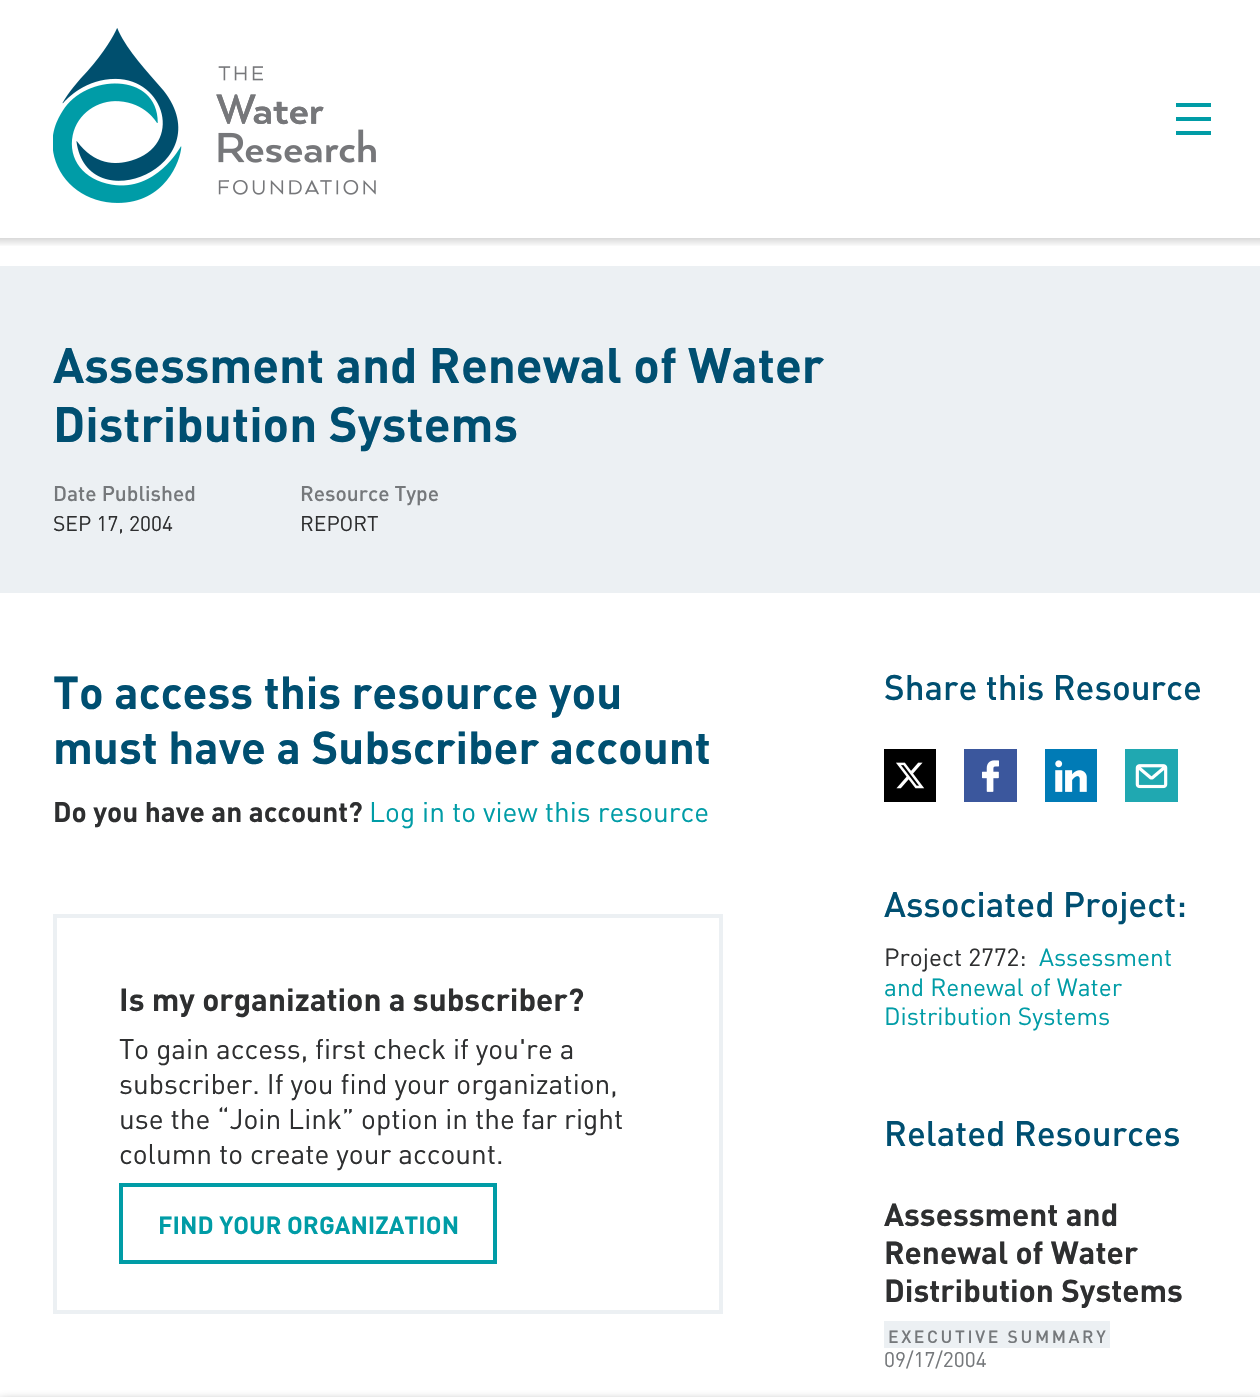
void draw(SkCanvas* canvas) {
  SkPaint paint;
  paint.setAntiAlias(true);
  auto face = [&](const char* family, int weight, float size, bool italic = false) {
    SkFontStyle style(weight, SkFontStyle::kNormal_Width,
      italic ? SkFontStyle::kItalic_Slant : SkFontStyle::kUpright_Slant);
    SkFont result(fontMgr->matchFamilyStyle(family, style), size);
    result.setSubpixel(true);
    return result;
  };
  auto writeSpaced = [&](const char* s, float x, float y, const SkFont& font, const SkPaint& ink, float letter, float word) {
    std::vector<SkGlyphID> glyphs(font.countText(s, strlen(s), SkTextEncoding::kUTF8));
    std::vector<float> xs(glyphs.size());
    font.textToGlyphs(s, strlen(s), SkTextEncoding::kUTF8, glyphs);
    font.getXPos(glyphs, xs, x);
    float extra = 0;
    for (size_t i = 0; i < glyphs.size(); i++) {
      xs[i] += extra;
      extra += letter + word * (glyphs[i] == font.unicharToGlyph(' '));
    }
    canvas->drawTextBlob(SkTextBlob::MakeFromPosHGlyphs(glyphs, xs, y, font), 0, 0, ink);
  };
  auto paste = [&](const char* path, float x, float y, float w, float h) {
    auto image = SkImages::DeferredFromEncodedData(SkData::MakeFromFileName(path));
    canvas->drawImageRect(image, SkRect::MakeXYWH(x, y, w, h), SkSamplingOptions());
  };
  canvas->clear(0xffffffff);
  paste("img/1.png", 53, 28, 323, 175);
  {
    const struct { float x, y, w, h; SkColor color; } items[] = {
      {1176, 117, 35, 4, 0xff009ca6},
      {1176, 103, 35, 4, 0xff009ca6},
      {1176, 131, 35, 4, 0xff009ca6},
    };
    for (auto [x, y, w, h, color] : items) {
      paint.setColor(color);
      canvas->drawRect(SkRect::MakeXYWH(x, y, w, h), paint);
    }
  }
  {
    const SkColor colors[] = {0xffd9d9d9, 0xffffffff};
    const float stops[] = {0, 1};
    const SkPoint ends[] = {{630, 238}, {630, 247}};
    paint.setShader(SkGradientShader::MakeLinear(ends, colors, stops, 2, SkTileMode::kClamp));
    paint.setAlpha(255);
  }
  canvas->drawRect(SkRect::MakeXYWH(0, 238, 1260, 8), paint);
  paint.setShader(nullptr);
  paint.setColor(0xffecf0f3);
  canvas->drawRect(SkRect::MakeXYWH(0, 266, 1260, 327), paint);
  paint.setStroke(true);
  paint.setStrokeWidth(4);
  canvas->drawRect(SkRect::MakeXYWH(55, 916, 666, 396), paint);
  paint.setColor(0xff009ca6);
  canvas->drawRect(SkRect::MakeXYWH(121, 1185, 374, 77), paint);
  paint.setStroke(false);
  paint.setColor(0xff000000);
  canvas->drawRect(SkRect::MakeXYWH(884, 749, 52, 53), paint);
  paste("img/2.png", 896, 762, 29, 27);
  paint.setColor(0xff3b579d);
  canvas->drawRect(SkRect::MakeXYWH(964, 749, 53, 53), paint);
  paste("img/3.png", 982, 760, 17, 32);
  paint.setColor(0xff007bb6);
  canvas->drawRect(SkRect::MakeXYWH(1045, 749, 52, 53), paint);
  paste("img/4.png", 1055, 760, 32, 32);
  paint.setColor(0xff20a8b1);
  canvas->drawRect(SkRect::MakeXYWH(1125, 749, 53, 53), paint);
  paste("img/5.png", 1135, 764, 33, 25);
  paint.setColor(0xffecf0f3);
  canvas->drawRect(SkRect::MakeXYWH(884, 1321, 226, 27), paint);
  paint.setColor(0xd9000000);
  paint.setMaskFilter(SkMaskFilter::MakeBlur(kNormal_SkBlurStyle, 6));
  canvas->drawRect(SkRect::MakeXYWH(0, 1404, 1260, 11), paint);
  paint.setMaskFilter(nullptr);
  auto f0 = face("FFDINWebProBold", 400, 49);
  paint.setColor(0xff004f71);
  canvas->drawString("Assessment and Renewal of Water", 53, 383, f0, paint);
  canvas->drawString("Distribution Systems", 53, 442, f0, paint);
  auto f1 = face("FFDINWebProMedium", 400, 21);
  paint.setColor(0xff75787b);
  canvas->drawString("Date Published", 53, 501, f1, paint);
  auto f2 = face("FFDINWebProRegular", 400, 21);
  paint.setColor(0xff2e2f30);
  canvas->drawString("SEP 17, 2004", 53, 531, f2, paint);
  paint.setColor(0xff75787b);
  canvas->drawString("Resource Type", 300, 501, f1, paint);
  paint.setColor(0xff2e2f30);
  canvas->drawString("REPORT", 300, 531, f2, paint);
  auto f3 = face("FFDINWebProBold", 400, 45.5f);
  paint.setColor(0xff004f71);
  canvas->drawString("To access this resource you", 53, 709, f3, paint);
  canvas->drawString("must have a Subscriber account", 53, 764, f3, paint);
  auto f4 = face("FFDINWebProBold", 400, 28);
  paint.setColor(0xff2e2f30);
  canvas->drawString("Do you have an account?", 53, 822, f4, paint);
  auto f5 = face("FFDINWebProRegular", 400, 28);
  paint.setColor(0xff009ca6);
  canvas->drawString("Log in to view this resource", 369, 822, f5, paint);
  auto f6 = face("FFDINWebProBold", 400, 31.5f);
  paint.setColor(0xff2e2f30);
  canvas->drawString("Is my organization a subscriber?", 119, 1011, f6, paint);
  {
    const struct { const char* s; float x, y; } items[] = {
      {"To gain access, first check if you're a", 119, 1059},
      {"subscriber. If you find your organization,", 119, 1094},
      {"use the “Join Link” option in the far right", 119, 1129},
      {"column to create your account.", 119, 1164},
    };
    for (auto [s, x, y] : items) {
      canvas->drawString(s, x, y, f5, paint);
    }
  }
  auto f7 = face("FFDINWebProBold", 400, 24.5f);
  paint.setColor(0xff009ca6);
  canvas->drawString("FIND YOUR ORGANIZATION", 158, 1234, f7, paint);
  auto f8 = face("FFDINWebProMedium", 400, 35);
  paint.setColor(0xff004f71);
  canvas->drawString("Share this Resource", 884, 700, f8, paint);
  canvas->drawString("Associated Project:", 884, 917, f8, paint);
  auto f9 = face("FFDINWebProRegular", 400, 24.5f);
  paint.setColor(0xff2e2f30);
  canvas->drawString("Project 2772:", 884, 966, f9, paint);
  paint.setColor(0xff009ca6);
  {
    const struct { const char* s; float x, y; } items[] = {
      {"Assessment", 1039, 966},
      {"and Renewal of Water", 884, 996},
      {"Distribution Systems", 884, 1025},
    };
    for (auto [s, x, y] : items) {
      canvas->drawString(s, x, y, f9, paint);
    }
  }
  paint.setColor(0xff004f71);
  canvas->drawString("Related Resources", 884, 1146, f8, paint);
  paint.setColor(0xff2e2f30);
  {
    const struct { const char* s; float x, y; } items[] = {
      {"Assessment and", 884, 1226},
      {"Renewal of Water", 884, 1264},
      {"Distribution Systems", 884, 1302},
    };
    for (auto [s, x, y] : items) {
      canvas->drawString(s, x, y, f6, paint);
    }
  }
  auto f10 = face("FFDINWebProMedium", 400, 17.5f);
  paint.setColor(0xff75787b);
  writeSpaced("EXECUTIVE SUMMARY", 888, 1343, f10, paint, 2.6f, 0);
  canvas->drawString("09/17/2004", 884, 1367, f2, paint);
}
